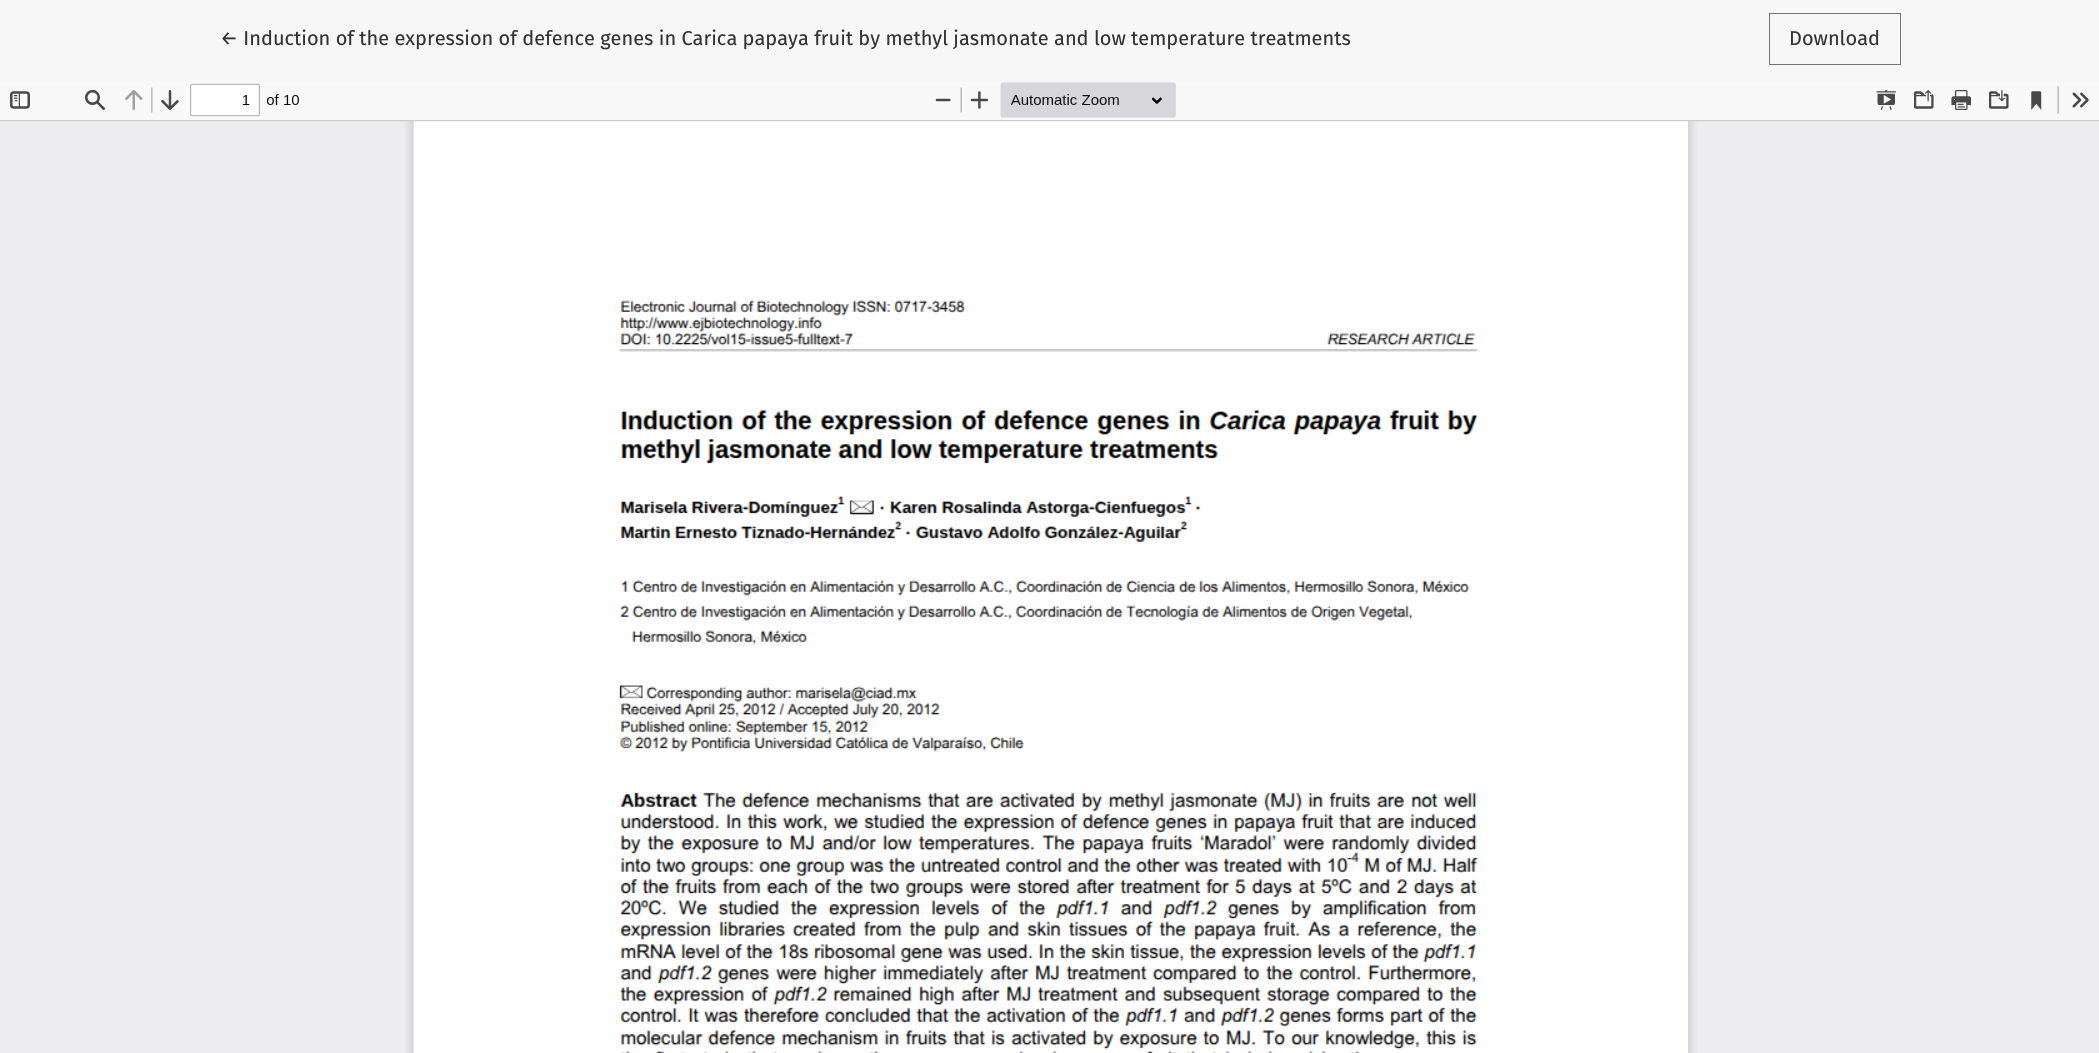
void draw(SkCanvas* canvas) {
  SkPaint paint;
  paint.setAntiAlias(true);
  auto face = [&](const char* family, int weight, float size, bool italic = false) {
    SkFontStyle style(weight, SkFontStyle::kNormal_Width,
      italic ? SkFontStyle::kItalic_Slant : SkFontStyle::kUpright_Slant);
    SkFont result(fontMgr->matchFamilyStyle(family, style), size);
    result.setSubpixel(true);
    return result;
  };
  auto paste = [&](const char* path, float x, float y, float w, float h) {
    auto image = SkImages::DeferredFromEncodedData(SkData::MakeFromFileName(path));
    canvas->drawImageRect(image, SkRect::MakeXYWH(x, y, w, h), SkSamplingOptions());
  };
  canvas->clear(0xfff7f7f7);
  paint.setStroke(true);
  paint.setStrokeWidth(1);
  paint.setColor(0xff757575);
  canvas->drawRect(SkRect::MakeXYWH(1769.5f, 13.5f, 131, 51), paint);
  paste("img/1.png", 0, 82, 2099, 971);
  auto f0 = face("Fira Sans", 400, 20);
  paint.setStroke(false);
  paint.setColor(0xff333333);
  canvas->drawString("← Induction of the expression of defence genes in Carica papaya fruit by methyl jasmonate and low temperature treatments", 220, 45, f0, paint);
  canvas->drawString("Download", 1789, 45, f0, paint);
}
